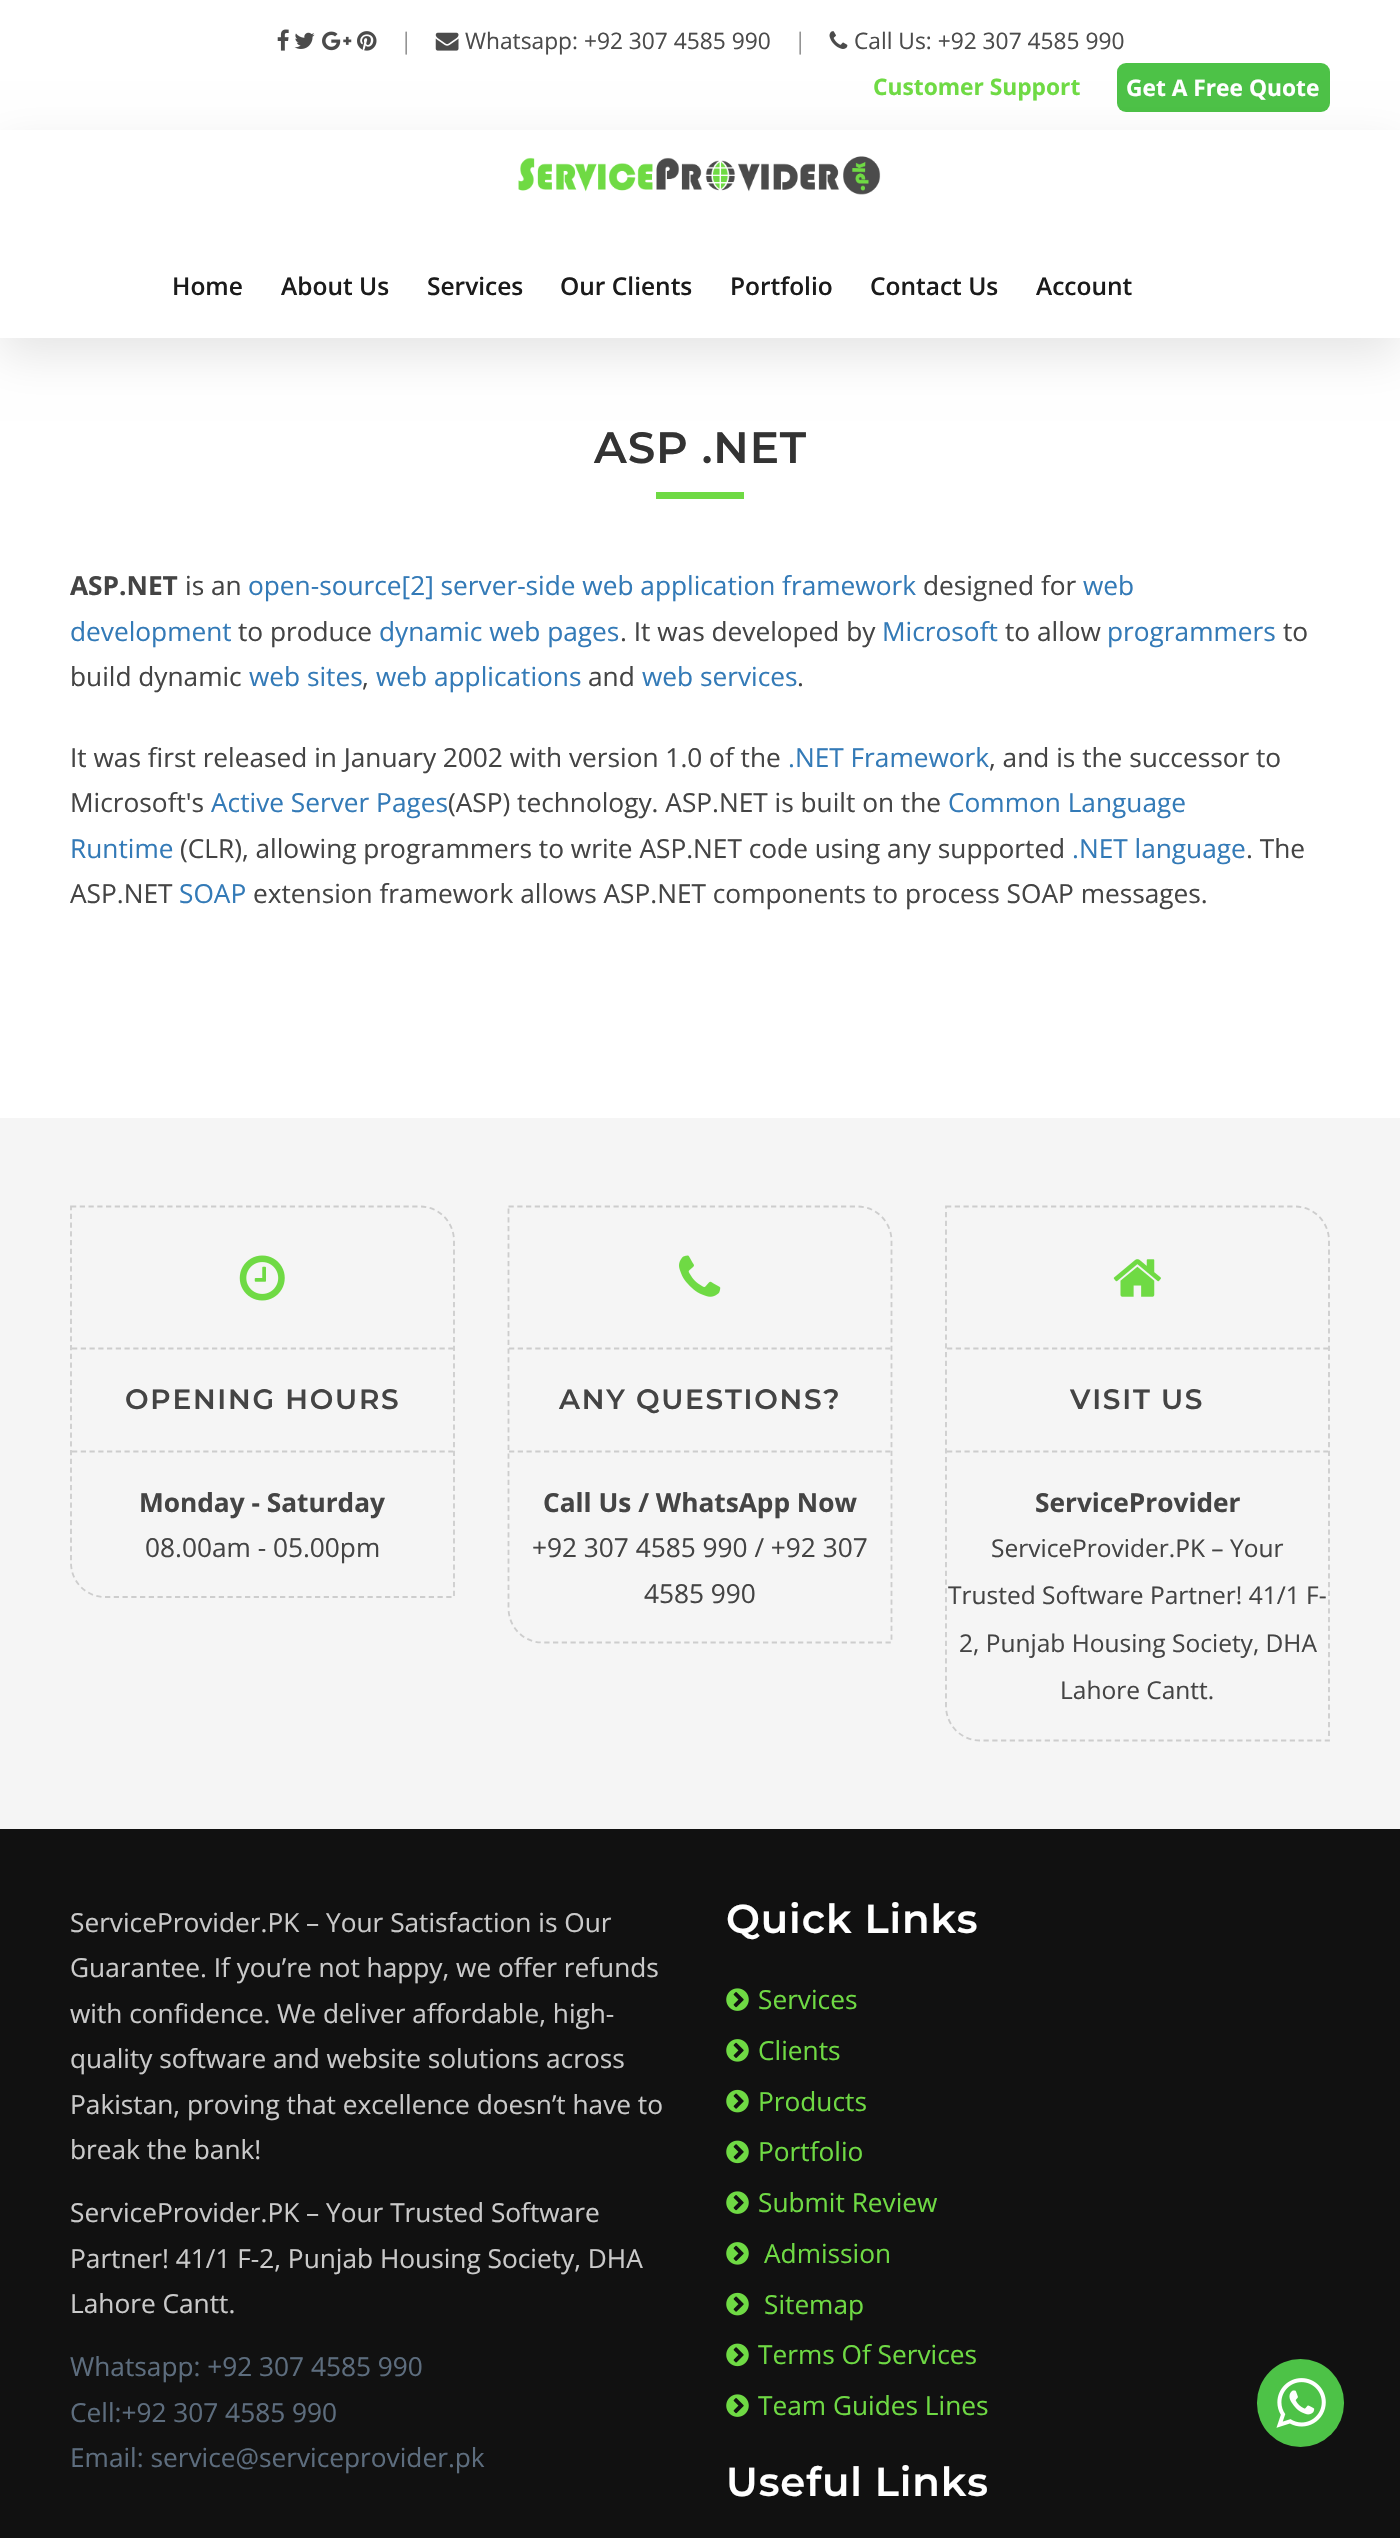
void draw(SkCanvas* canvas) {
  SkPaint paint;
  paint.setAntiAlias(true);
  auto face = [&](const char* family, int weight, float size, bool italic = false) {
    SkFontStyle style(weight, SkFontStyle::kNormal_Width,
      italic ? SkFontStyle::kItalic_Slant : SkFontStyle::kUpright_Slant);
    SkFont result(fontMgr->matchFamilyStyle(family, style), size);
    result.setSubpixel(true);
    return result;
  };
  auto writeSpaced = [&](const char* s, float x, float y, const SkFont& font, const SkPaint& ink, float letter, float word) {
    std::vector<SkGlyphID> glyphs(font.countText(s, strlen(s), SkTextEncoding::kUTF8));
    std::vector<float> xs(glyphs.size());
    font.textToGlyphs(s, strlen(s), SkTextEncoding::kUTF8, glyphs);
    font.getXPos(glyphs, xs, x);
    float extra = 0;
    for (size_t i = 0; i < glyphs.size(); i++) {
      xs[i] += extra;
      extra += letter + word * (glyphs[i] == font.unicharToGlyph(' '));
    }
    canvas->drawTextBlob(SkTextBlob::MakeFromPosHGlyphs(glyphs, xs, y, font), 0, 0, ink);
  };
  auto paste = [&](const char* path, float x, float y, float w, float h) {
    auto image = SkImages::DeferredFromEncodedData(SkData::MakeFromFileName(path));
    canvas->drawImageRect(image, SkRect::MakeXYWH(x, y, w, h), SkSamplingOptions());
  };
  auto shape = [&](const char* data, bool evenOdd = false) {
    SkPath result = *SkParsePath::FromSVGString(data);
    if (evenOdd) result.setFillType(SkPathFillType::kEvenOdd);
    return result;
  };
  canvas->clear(0xffffffff);
  paste("img/1.png", 277, 29, 12, 22);
  paste("img/2.png", 294, 32, 21, 17);
  paste("img/3.png", 322, 31, 30, 20);
  paste("img/4.png", 357, 31, 20, 20);
  paste("img/5.png", 435, 32, 24, 19);
  paste("img/6.png", 829, 31, 19, 18);
  paint.setColor(0xff4dc247);
  canvas->drawRoundRect(SkRect::MakeXYWH(1117, 63, 213, 49), 9, 9, paint);
  paint.setColor(0x1a000000);
  paint.setMaskFilter(SkMaskFilter::MakeBlur(kNormal_SkBlurStyle, 22));
  canvas->drawRect(SkRect::MakeXYWH(0, 147, 1400, 208), paint);
  paint.setMaskFilter(nullptr);
  paint.setColor(0xffffffff);
  canvas->drawRect(SkRect::MakeXYWH(0, 130, 1400, 208), paint);
  paste("img/7.png", 518, 156, 363, 39);
  paint.setColor(0xff6fda44);
  canvas->drawRect(SkRect::MakeXYWH(656, 492, 88, 7), paint);
  paint.setColor(0xfff5f5f5);
  canvas->drawRect(SkRect::MakeXYWH(0, 1118, 1400, 711), paint);
  paint.setStroke(true);
  paint.setStrokeWidth(1.8f);
  paint.setColor(0xffcdcdcd);
  paint.setPathEffect(SkDashPathEffect::Make({{5.25f, 3.5f}}, 0));
  canvas->drawPath(shape("M71 1206.5H420C439 1206.5 454 1222 454 1241V1597H105C86 1597 71 1581.5 71 1563Z"), paint);
  paint.setPathEffect(nullptr);
  paste("img/8.png", 239, 1255, 46, 46);
  paint.setPathEffect(SkDashPathEffect::Make({{5.25f, 3.5f}}, 0));
  canvas->drawPath(shape("M72 1348.5H453"), paint);
  paint.setPathEffect(nullptr);
  paint.setPathEffect(SkDashPathEffect::Make({{5.25f, 3.5f}}, 0));
  canvas->drawPath(shape("M72 1451.5H453"), paint);
  paint.setPathEffect(nullptr);
  paint.setPathEffect(SkDashPathEffect::Make({{5.25f, 3.5f}}, 0));
  canvas->drawPath(shape("M508.5 1206.5H857.5C876.5 1206.5 891.5 1222 891.5 1241V1642.5H542.5C523.5 1642.5 508.5 1627 508.5 1608Z"), paint);
  paint.setPathEffect(nullptr);
  paste("img/9.png", 679, 1255, 42, 42);
  paint.setPathEffect(SkDashPathEffect::Make({{5.25f, 3.5f}}, 0));
  canvas->drawPath(shape("M509 1348.5H891"), paint);
  paint.setPathEffect(nullptr);
  paint.setPathEffect(SkDashPathEffect::Make({{5.25f, 3.5f}}, 0));
  canvas->drawPath(shape("M509 1451.5H891"), paint);
  paint.setPathEffect(nullptr);
  paint.setPathEffect(SkDashPathEffect::Make({{5.25f, 3.5f}}, 0));
  canvas->drawPath(shape("M946 1206.5H1295C1314 1206.5 1329 1222 1329 1241V1740.5H980C961 1740.5 946 1725 946 1706Z"), paint);
  paint.setPathEffect(nullptr);
  paste("img/10.png", 1113, 1259, 48, 38);
  paint.setPathEffect(SkDashPathEffect::Make({{5.25f, 3.5f}}, 0));
  canvas->drawPath(shape("M947 1348.5H1328"), paint);
  paint.setPathEffect(nullptr);
  paint.setPathEffect(SkDashPathEffect::Make({{5.25f, 3.5f}}, 0));
  canvas->drawPath(shape("M947 1451.5H1328"), paint);
  paint.setPathEffect(nullptr);
  paint.setStroke(false);
  paint.setColor(0xff111111);
  canvas->drawRect(SkRect::MakeXYWH(0, 1829, 1400, 709), paint);
  paste("img/11.png", 726, 1988, 23, 23);
  paste("img/12.png", 726, 2039, 23, 23);
  paste("img/13.png", 726, 2089, 23, 24);
  paste("img/14.png", 726, 2140, 23, 24);
  paste("img/11.png", 726, 2191, 23, 23);
  paste("img/12.png", 726, 2242, 23, 23);
  paste("img/13.png", 726, 2292, 23, 24);
  paste("img/14.png", 726, 2343, 23, 24);
  paste("img/11.png", 726, 2394, 23, 23);
  paint.setColor(0xff4dc247);
  canvas->drawRoundRect(SkRect::MakeXYWH(1257, 2359, 87, 88), 43.5f, 43.5f, paint);
  paste("img/15.png", 1276, 2378, 50, 50);
  auto f0 = face("Open Sans", 400, 22.75f);
  paint.setColor(0xff949494);
  canvas->drawString("|", 400, 49, f0, paint);
  paint.setColor(0xff4b4b4b);
  canvas->drawString("Whatsapp: +92 307 4585 990", 465, 49, f0, paint);
  paint.setColor(0xff949494);
  canvas->drawString("|", 794, 49, f0, paint);
  paint.setColor(0xff4b4b4b);
  canvas->drawString("Call Us: +92 307 4585 990", 854, 49, f0, paint);
  auto f1 = face("Open Sans", 700, 22.75f);
  paint.setColor(0xff6fda44);
  canvas->drawString("Customer Support", 873, 95, f1, paint);
  paint.setColor(0xffffffff);
  canvas->drawString("Get A Free Quote", 1126, 96, f1, paint);
  auto f2 = face("Open Sans", 600, 24.5f);
  paint.setColor(0xff1b1b1b);
  {
    const struct { const char* s; float x, y; } items[] = {
      {"Home", 172, 295},
      {"About Us", 281, 295},
      {"Services", 427, 295},
      {"Our Clients", 560, 295},
      {"Portfolio", 730, 295},
      {"Contact Us", 870, 295},
      {"Account", 1036, 295},
    };
    for (auto [s, x, y] : items) {
      canvas->drawString(s, x, y, f2, paint);
    }
  }
  auto f3 = face("Montserrat", 600, 43.75f);
  paint.setColor(0xff333333);
  writeSpaced("ASP .NET", 594, 463, f3, paint, 0.9f, 0);
  auto f4 = face("Open Sans", 700, 26.25f);
  paint.setColor(0xff444444);
  canvas->drawString("ASP.NET", 70, 595, f4, paint);
  auto f5 = face("Open Sans", 400, 26.25f);
  canvas->drawString("is an", 185, 595, f5, paint);
  paint.setColor(0xff337ab7);
  canvas->drawString("open-source[2] server-side web application framework", 248, 595, f5, paint);
  paint.setColor(0xff444444);
  canvas->drawString("designed for", 923, 595, f5, paint);
  paint.setColor(0xff337ab7);
  canvas->drawString("web", 1083, 595, f5, paint);
  canvas->drawString("development", 70, 641, f5, paint);
  paint.setColor(0xff444444);
  canvas->drawString("to produce", 238, 641, f5, paint);
  paint.setColor(0xff337ab7);
  canvas->drawString("dynamic web pages", 379, 641, f5, paint);
  paint.setColor(0xff444444);
  canvas->drawString(". It was developed by", 620, 641, f5, paint);
  paint.setColor(0xff337ab7);
  canvas->drawString("Microsoft", 882, 641, f5, paint);
  paint.setColor(0xff444444);
  canvas->drawString("to allow", 1005, 641, f5, paint);
  paint.setColor(0xff337ab7);
  canvas->drawString("programmers", 1107, 641, f5, paint);
  paint.setColor(0xff444444);
  canvas->drawString("to", 1283, 641, f5, paint);
  canvas->drawString("build dynamic", 70, 686, f5, paint);
  paint.setColor(0xff337ab7);
  canvas->drawString("web sites", 249, 686, f5, paint);
  paint.setColor(0xff444444);
  canvas->drawString(",", 362, 686, f5, paint);
  paint.setColor(0xff337ab7);
  canvas->drawString("web applications", 376, 686, f5, paint);
  paint.setColor(0xff444444);
  canvas->drawString("and", 588, 686, f5, paint);
  paint.setColor(0xff337ab7);
  canvas->drawString("web services", 642, 686, f5, paint);
  paint.setColor(0xff444444);
  canvas->drawString(".", 797, 686, f5, paint);
  canvas->drawString("It was first released in January 2002 with version 1.0 of the", 70, 767, f5, paint);
  paint.setColor(0xff337ab7);
  canvas->drawString(".NET Framework", 788, 767, f5, paint);
  paint.setColor(0xff444444);
  canvas->drawString(", and is the successor to", 989, 767, f5, paint);
  canvas->drawString("Microsoft's", 70, 812, f5, paint);
  paint.setColor(0xff337ab7);
  canvas->drawString("Active Server Pages", 211, 812, f5, paint);
  paint.setColor(0xff444444);
  canvas->drawString("(ASP) technology. ASP.NET is built on the", 448, 812, f5, paint);
  paint.setColor(0xff337ab7);
  canvas->drawString("Common Language", 948, 812, f5, paint);
  canvas->drawString("Runtime", 70, 858, f5, paint);
  paint.setColor(0xff444444);
  canvas->drawString("(CLR), allowing programmers to write ASP.NET code using any supported", 180, 858, f5, paint);
  paint.setColor(0xff337ab7);
  canvas->drawString(".NET language", 1072, 858, f5, paint);
  paint.setColor(0xff444444);
  canvas->drawString(". The", 1246, 858, f5, paint);
  canvas->drawString("ASP.NET", 70, 903, f5, paint);
  paint.setColor(0xff337ab7);
  canvas->drawString("SOAP", 179, 903, f5, paint);
  paint.setColor(0xff444444);
  canvas->drawString("extension framework allows ASP.NET components to process SOAP messages.", 253, 903, f5, paint);
  auto f6 = face("Montserrat", 600, 28);
  writeSpaced("OPENING HOURS", 125, 1409, f6, paint, 1.75f, 0);
  canvas->drawString("Monday - Saturday", 139, 1512, f4, paint);
  canvas->drawString("08.00am - 05.00pm", 145, 1557, f5, paint);
  writeSpaced("ANY QUESTIONS?", 559, 1409, f6, paint, 1.75f, 0);
  canvas->drawString("Call Us / WhatsApp Now", 543, 1512, f4, paint);
  canvas->drawString("+92 307 4585 990 / +92 307", 532, 1557, f5, paint);
  canvas->drawString("4585 990", 644, 1603, f5, paint);
  writeSpaced("VISIT US", 1070, 1409, f6, paint, 1.75f, 0);
  canvas->drawString("ServiceProvider", 1035, 1512, f4, paint);
  auto f7 = face("Open Sans", 400, 24.5f);
  {
    const struct { const char* s; float x, y; } items[] = {
      {"ServiceProvider.PK – Your", 991, 1557},
      {"Trusted Software Partner! 41/1 F-", 948, 1604},
      {"2, Punjab Housing Society, DHA", 959, 1652},
      {"Lahore Cantt.", 1060, 1699},
    };
    for (auto [s, x, y] : items) {
      canvas->drawString(s, x, y, f7, paint);
    }
  }
  paint.setColor(0xffcacaca);
  {
    const struct { const char* s; float x, y; } items[] = {
      {"ServiceProvider.PK – Your Satisfaction is Our", 70, 1932},
      {"Guarantee. If you’re not happy, we offer refunds", 70, 1977},
      {"with confidence. We deliver affordable, high-", 70, 2023},
      {"quality software and website solutions across", 70, 2068},
      {"Pakistan, proving that excellence doesn’t have to", 70, 2114},
      {"break the bank!", 70, 2159},
      {"ServiceProvider.PK – Your Trusted Software", 70, 2222},
      {"Partner! 41/1 F-2, Punjab Housing Society, DHA", 70, 2268},
      {"Lahore Cantt.", 70, 2313},
    };
    for (auto [s, x, y] : items) {
      canvas->drawString(s, x, y, f5, paint);
    }
  }
  paint.setColor(0xff5d6d7e);
  {
    const struct { const char* s; float x, y; } items[] = {
      {"Whatsapp: +92 307 4585 990", 70, 2376},
      {"Cell:+92 307 4585 990", 70, 2422},
      {"Email: service@serviceprovider.pk", 70, 2467},
    };
    for (auto [s, x, y] : items) {
      canvas->drawString(s, x, y, f5, paint);
    }
  }
  auto f8 = face("Montserrat", 600, 40.25f);
  paint.setColor(0xffffffff);
  writeSpaced("Quick Links", 726, 1933, f8, paint, 0.9f, 0);
  paint.setColor(0xff6fda44);
  {
    const struct { const char* s; float x, y; } items[] = {
      {"Services", 758, 2009},
      {"Clients", 758, 2060},
      {"Products", 758, 2111},
      {"Portfolio", 758, 2161},
      {"Submit Review", 758, 2212},
      {"Admission", 764, 2263},
      {"Sitemap", 764, 2314},
      {"Terms Of Services", 758, 2364},
      {"Team Guides Lines", 758, 2415},
    };
    for (auto [s, x, y] : items) {
      canvas->drawString(s, x, y, f5, paint);
    }
  }
  paint.setColor(0xffffffff);
  writeSpaced("Useful Links", 726, 2496, f8, paint, 0.9f, 0);
}
